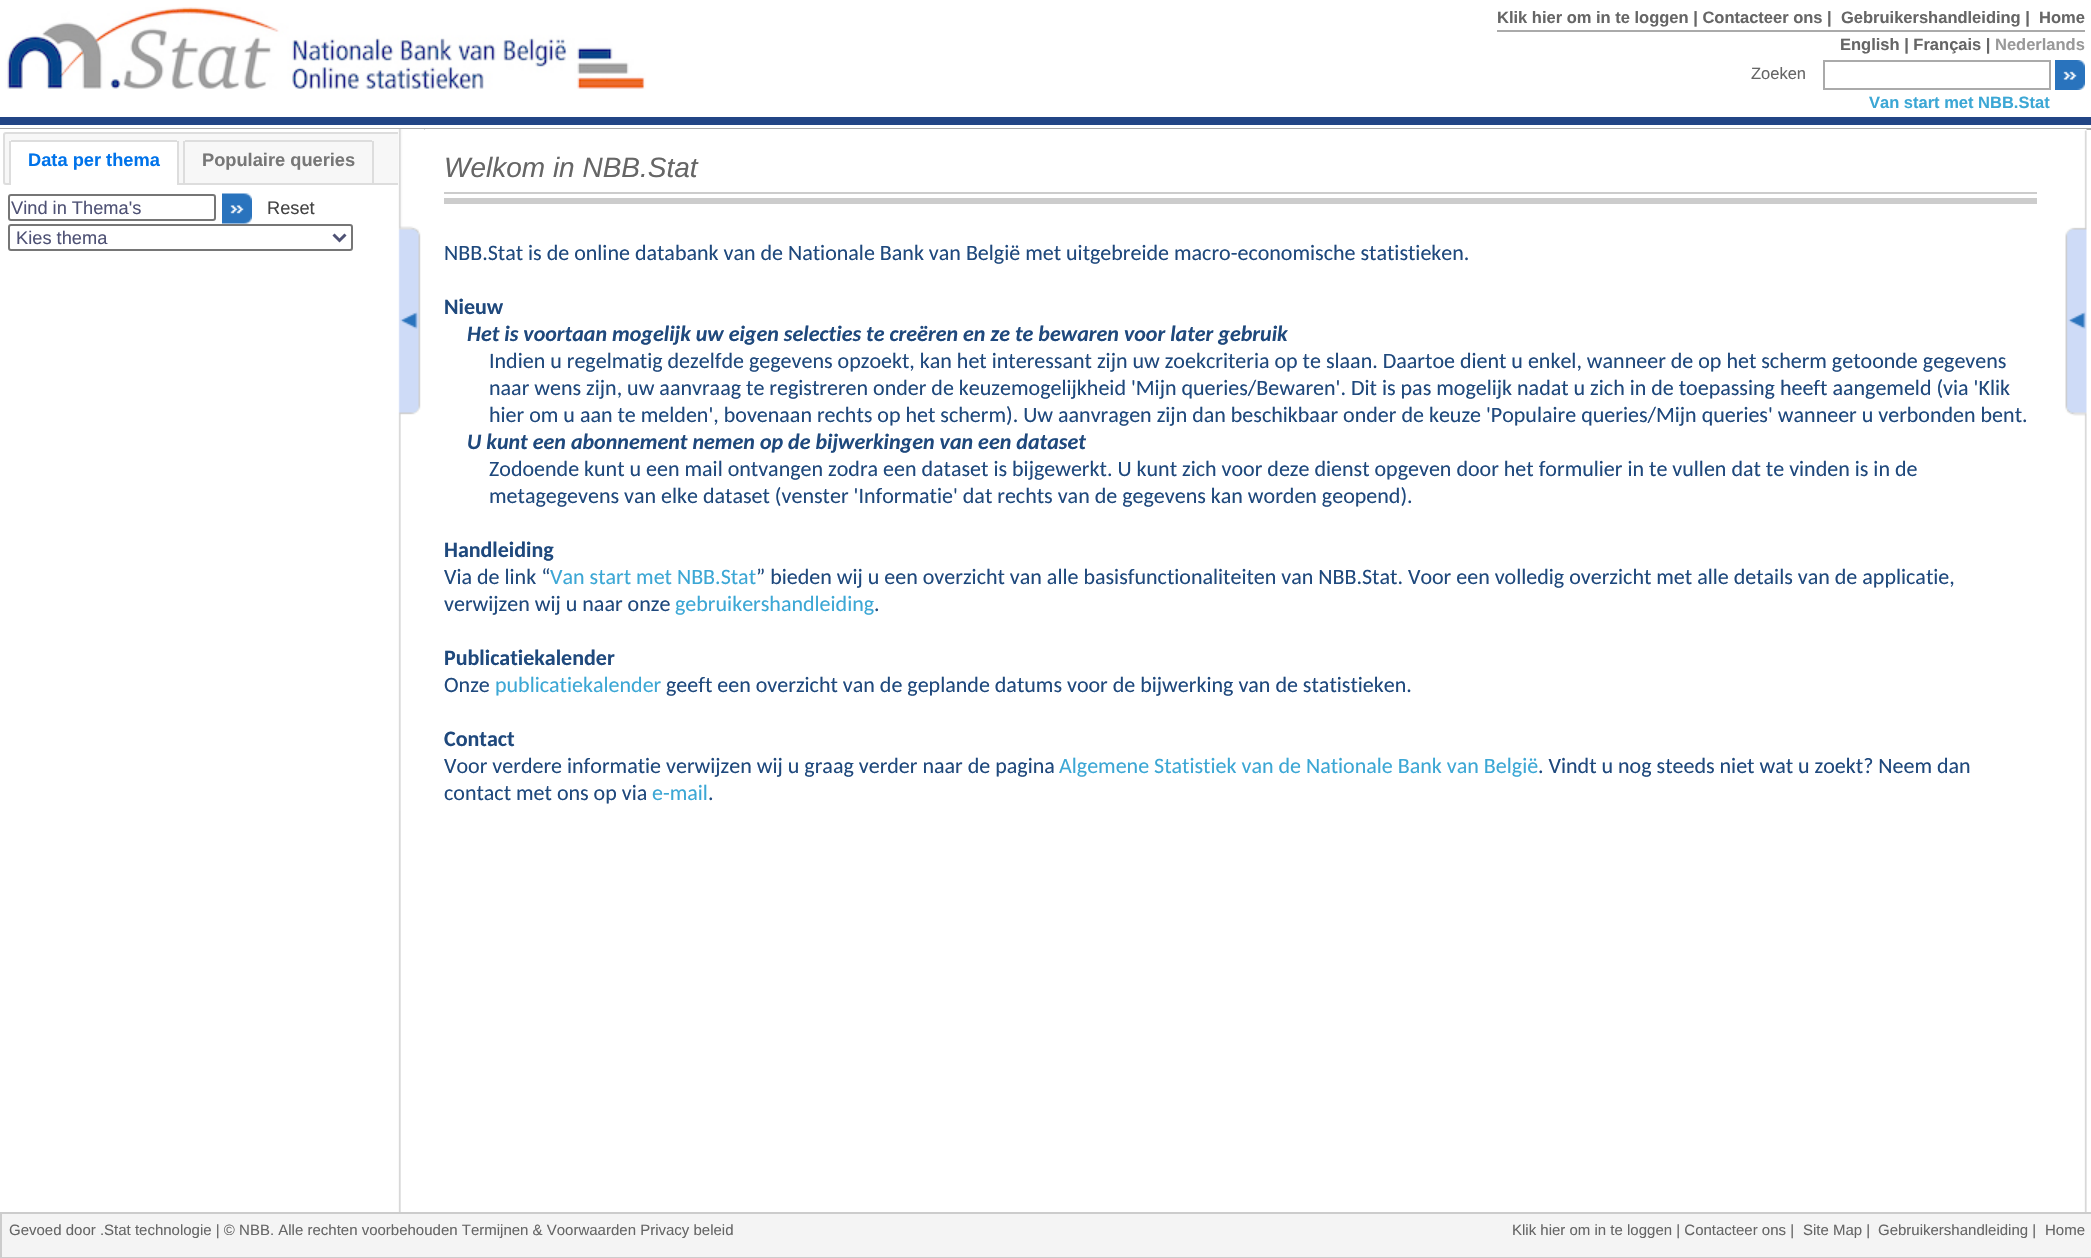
void draw(SkCanvas* canvas) {
  SkPaint paint;
  paint.setAntiAlias(true);
  auto face = [&](const char* family, int weight, float size, bool italic = false) {
    SkFontStyle style(weight, SkFontStyle::kNormal_Width,
      italic ? SkFontStyle::kItalic_Slant : SkFontStyle::kUpright_Slant);
    SkFont result(fontMgr->matchFamilyStyle(family, style), size);
    result.setSubpixel(true);
    return result;
  };
  auto paste = [&](const char* path, float x, float y, float w, float h) {
    auto image = SkImages::DeferredFromEncodedData(SkData::MakeFromFileName(path));
    canvas->drawImageRect(image, SkRect::MakeXYWH(x, y, w, h), SkSamplingOptions());
  };
  auto shape = [&](const char* data, bool evenOdd = false) {
    SkPath result = *SkParsePath::FromSVGString(data);
    if (evenOdd) result.setFillType(SkPathFillType::kEvenOdd);
    return result;
  };
  canvas->clear(0xffffffff);
  paste("img/1.png", 5, 7, 641, 83);
  paint.setColor(0xffaaaaaa);
  canvas->drawRect(SkRect::MakeXYWH(1497, 30, 588, 2), paint);
  paint.setStroke(true);
  paint.setStrokeWidth(2);
  canvas->drawRect(SkRect::MakeXYWH(1824, 61, 226, 28), paint);
  paste("img/2.png", 2055, 60, 30, 30);
  paint.setStroke(false);
  {
    const struct { float x, y, w, h; SkColor color; } items[] = {
      {0, 117, 2091, 8, 0xff224585},
      {0, 128, 2091, 2, 0xffaaaaaa},
      {0, 129, 398, 1, 0xffffffff},
    };
    for (auto [x, y, w, h, color] : items) {
      paint.setColor(color);
      canvas->drawRect(SkRect::MakeXYWH(x, y, w, h), paint);
    }
  }
  paint.setColor(0xfff7f7f7);
  canvas->drawPath(shape("M6 132H398V185H6C4.5 185 3 183.5 3 182V135C3 133.5 4.5 132 6 132Z"), paint);
  paste("img/4.png", 398, 129, 27, 1083);
  canvas->save();
  canvas->clipRect(SkRect::MakeXYWH(0, 129, 398, 1083));
  paint.setStroke(true);
  paint.setColor(0xffdddddd);
  canvas->drawRoundRect(SkRect::MakeXYWH(4, 133, 759, 51), 2, 2, paint);
  canvas->restore();
  paint.setStroke(false);
  paint.setColor(0xffffffff);
  canvas->drawPath(shape("M12 140H176C177.5 140 179 141.5 179 143V185H9V143C9 141.5 10.5 140 12 140Z"), paint);
  {
    const struct { float x, y, w, h; SkColor color; } items[] = {
      {11, 140, 166, 2, 0xffdddddd},
      {177, 141, 2, 44, 0xffdddddd},
      {9, 141, 2, 44, 0xffdddddd},
      {185, 140, 187, 2, 0xffdddddd},
      {372, 141, 2, 42, 0xffdddddd},
      {183, 141, 2, 42, 0xffdddddd},
    };
    for (auto [x, y, w, h, color] : items) {
      paint.setColor(color);
      canvas->drawRect(SkRect::MakeXYWH(x, y, w, h), paint);
    }
  }
  paint.setStroke(true);
  paint.setColor(0xff767676);
  canvas->drawRoundRect(SkRect::MakeXYWH(9, 195, 206, 25), 2, 2, paint);
  paste("img/3.png", 222, 193, 30, 31);
  canvas->drawRoundRect(SkRect::MakeXYWH(9, 225, 343, 25), 2, 2, paint);
  paint.setStrokeWidth(3);
  paint.setColor(0xff4f5275);
  canvas->drawPath(shape("M333.5 234.5L339.5 240.5L345.5 234.5"), paint);
  paint.setStroke(false);
  {
    const struct { float x, y, w, h; SkColor color; } items[] = {
      {425, 129, 1635, 1, 0xffffffff},
      {444, 192, 1593, 2, 0xffcccccc},
      {444, 198, 1593, 6, 0xffcccccc},
    };
    for (auto [x, y, w, h, color] : items) {
      paint.setColor(color);
      canvas->drawRect(SkRect::MakeXYWH(x, y, w, h), paint);
    }
  }
  paste("img/5.png", 2060, 129, 27, 1083);
  paint.setColor(0xfff4f4f4);
  canvas->drawRect(SkRect::MakeXYWH(1, 1213, 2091, 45), paint);
  paint.setStroke(true);
  paint.setStrokeWidth(2);
  paint.setColor(0xffcccccc);
  canvas->drawRect(SkRect::MakeXYWH(1, 1213, 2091, 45), paint);
  auto f0 = face("Liberation Sans", 700, 16.5f);
  paint.setStroke(false);
  paint.setColor(0xff666666);
  {
    const struct { const char* s; float x, y; } items[] = {
      {"Klik hier om in te loggen | Contacteer ons |", 1497, 23},
      {"Gebruikershandleiding |", 1841, 23},
      {"Home", 2039, 23},
      {"English | Français |", 1840, 50},
    };
    for (auto [s, x, y] : items) {
      canvas->drawString(s, x, y, f0, paint);
    }
  }
  paint.setColor(0xff999999);
  canvas->drawString("Nederlands", 1995, 50, f0, paint);
  auto f1 = face("Liberation Sans", 400, 16.5f);
  paint.setColor(0xff666666);
  canvas->drawString("Zoeken", 1751, 79, f1, paint);
  paint.setColor(0xff3ca7d5);
  canvas->drawString("Van start met NBB.Stat", 1869, 108, f0, paint);
  auto f2 = face("Liberation Sans", 700, 18.25f);
  paint.setColor(0xff0073ea);
  canvas->drawString("Data per thema", 28, 166, f2, paint);
  paint.setColor(0xff777777);
  canvas->drawString("Populaire queries", 202, 166, f2, paint);
  auto f3 = face("Liberation Sans", 400, 18.25f);
  paint.setColor(0xff4f5275);
  canvas->drawString("Vind in Thema's", 11, 214, f3, paint);
  paint.setColor(0xff444444);
  canvas->drawString("Reset", 267, 214, f3, paint);
  paint.setColor(0xff4f5275);
  canvas->drawString("Kies thema", 16, 244, f3, paint);
  auto f4 = face("Liberation Sans", 400, 28, true);
  paint.setColor(0xff666666);
  canvas->drawString("Welkom in NBB.Stat", 444, 177, f4, paint);
  auto f5 = face("Carlito", 400, 22);
  paint.setColor(0xff1f497d);
  canvas->drawString("NBB.Stat is de online databank van de Nationale Bank van België met uitgebreide macro-economische statistieken.", 444, 260, f5, paint);
  auto f6 = face("Carlito", 700, 22);
  canvas->drawString("Nieuw", 444, 314, f6, paint);
  auto f7 = face("Carlito", 700, 22, true);
  canvas->drawString("Het is voortaan mogelijk uw eigen selecties te creëren en ze te bewaren voor later gebruik", 467, 341, f7, paint);
  {
    const struct { const char* s; float x, y; } items[] = {
      {"Indien u regelmatig dezelfde gegevens opzoekt, kan het interessant zijn uw zoekcriteria op te slaan. Daartoe dient u enkel, wanneer de op het scherm getoonde gegevens", 489, 368},
      {"naar wens zijn, uw aanvraag te registreren onder de keuzemogelijkheid 'Mijn queries/Bewaren'. Dit is pas mogelijk nadat u zich in de toepassing heeft aangemeld (via 'Klik", 489, 395},
      {"hier om u aan te melden', bovenaan rechts op het scherm). Uw aanvragen zijn dan beschikbaar onder de keuze 'Populaire queries/Mijn queries' wanneer u verbonden bent.", 489, 422},
    };
    for (auto [s, x, y] : items) {
      canvas->drawString(s, x, y, f5, paint);
    }
  }
  canvas->drawString("U kunt een abonnement nemen op de bijwerkingen van een dataset", 467, 449, f7, paint);
  canvas->drawString("Zodoende kunt u een mail ontvangen zodra een dataset is bijgewerkt. U kunt zich voor deze dienst opgeven door het formulier in te vullen dat te vinden is in de", 489, 476, f5, paint);
  canvas->drawString("metagegevens van elke dataset (venster 'Informatie' dat rechts van de gegevens kan worden geopend).", 489, 503, f5, paint);
  canvas->drawString("Handleiding", 444, 557, f6, paint);
  canvas->drawString("Via de link “", 444, 584, f5, paint);
  paint.setColor(0xff3ca7d5);
  canvas->drawString("Van start met NBB.Stat", 550, 584, f5, paint);
  paint.setColor(0xff1f497d);
  canvas->drawString("” bieden wij u een overzicht van alle basisfunctionaliteiten van NBB.Stat. Voor een volledig overzicht met alle details van de applicatie,", 756, 584, f5, paint);
  canvas->drawString("verwijzen wij u naar onze", 444, 611, f5, paint);
  paint.setColor(0xff3ca7d5);
  canvas->drawString("gebruikershandleiding", 675, 611, f5, paint);
  paint.setColor(0xff1f497d);
  canvas->drawString(".", 874, 611, f5, paint);
  canvas->drawString("Publicatiekalender", 444, 665, f6, paint);
  canvas->drawString("Onze", 444, 692, f5, paint);
  paint.setColor(0xff3ca7d5);
  canvas->drawString("publicatiekalender", 495, 692, f5, paint);
  paint.setColor(0xff1f497d);
  canvas->drawString("geeft een overzicht van de geplande datums voor de bijwerking van de statistieken.", 666, 692, f5, paint);
  canvas->drawString("Contact", 444, 746, f6, paint);
  canvas->drawString("Voor verdere informatie verwijzen wij u graag verder naar de pagina", 444, 773, f5, paint);
  paint.setColor(0xff3ca7d5);
  canvas->drawString("Algemene Statistiek van de Nationale Bank van België", 1059, 773, f5, paint);
  paint.setColor(0xff1f497d);
  canvas->drawString(". Vindt u nog steeds niet wat u zoekt? Neem dan", 1538, 773, f5, paint);
  canvas->drawString("contact met ons op via", 444, 800, f5, paint);
  paint.setColor(0xff3ca7d5);
  canvas->drawString("e-mail", 652, 800, f5, paint);
  paint.setColor(0xff1f497d);
  canvas->drawString(".", 708, 800, f5, paint);
  auto f8 = face("Liberation Sans", 400, 15);
  paint.setColor(0xff666666);
  {
    const struct { const char* s; float x, y; } items[] = {
      {"Gevoed door .Stat technologie | © NBB. Alle rechten voorbehouden Termijnen & Voorwaarden Privacy beleid", 9, 1235},
      {"Klik hier om in te loggen | Contacteer ons |", 1512, 1235},
      {"Site Map |", 1803, 1235},
      {"Gebruikershandleiding |", 1878, 1235},
      {"Home", 2045, 1235},
    };
    for (auto [s, x, y] : items) {
      canvas->drawString(s, x, y, f8, paint);
    }
  }
}
